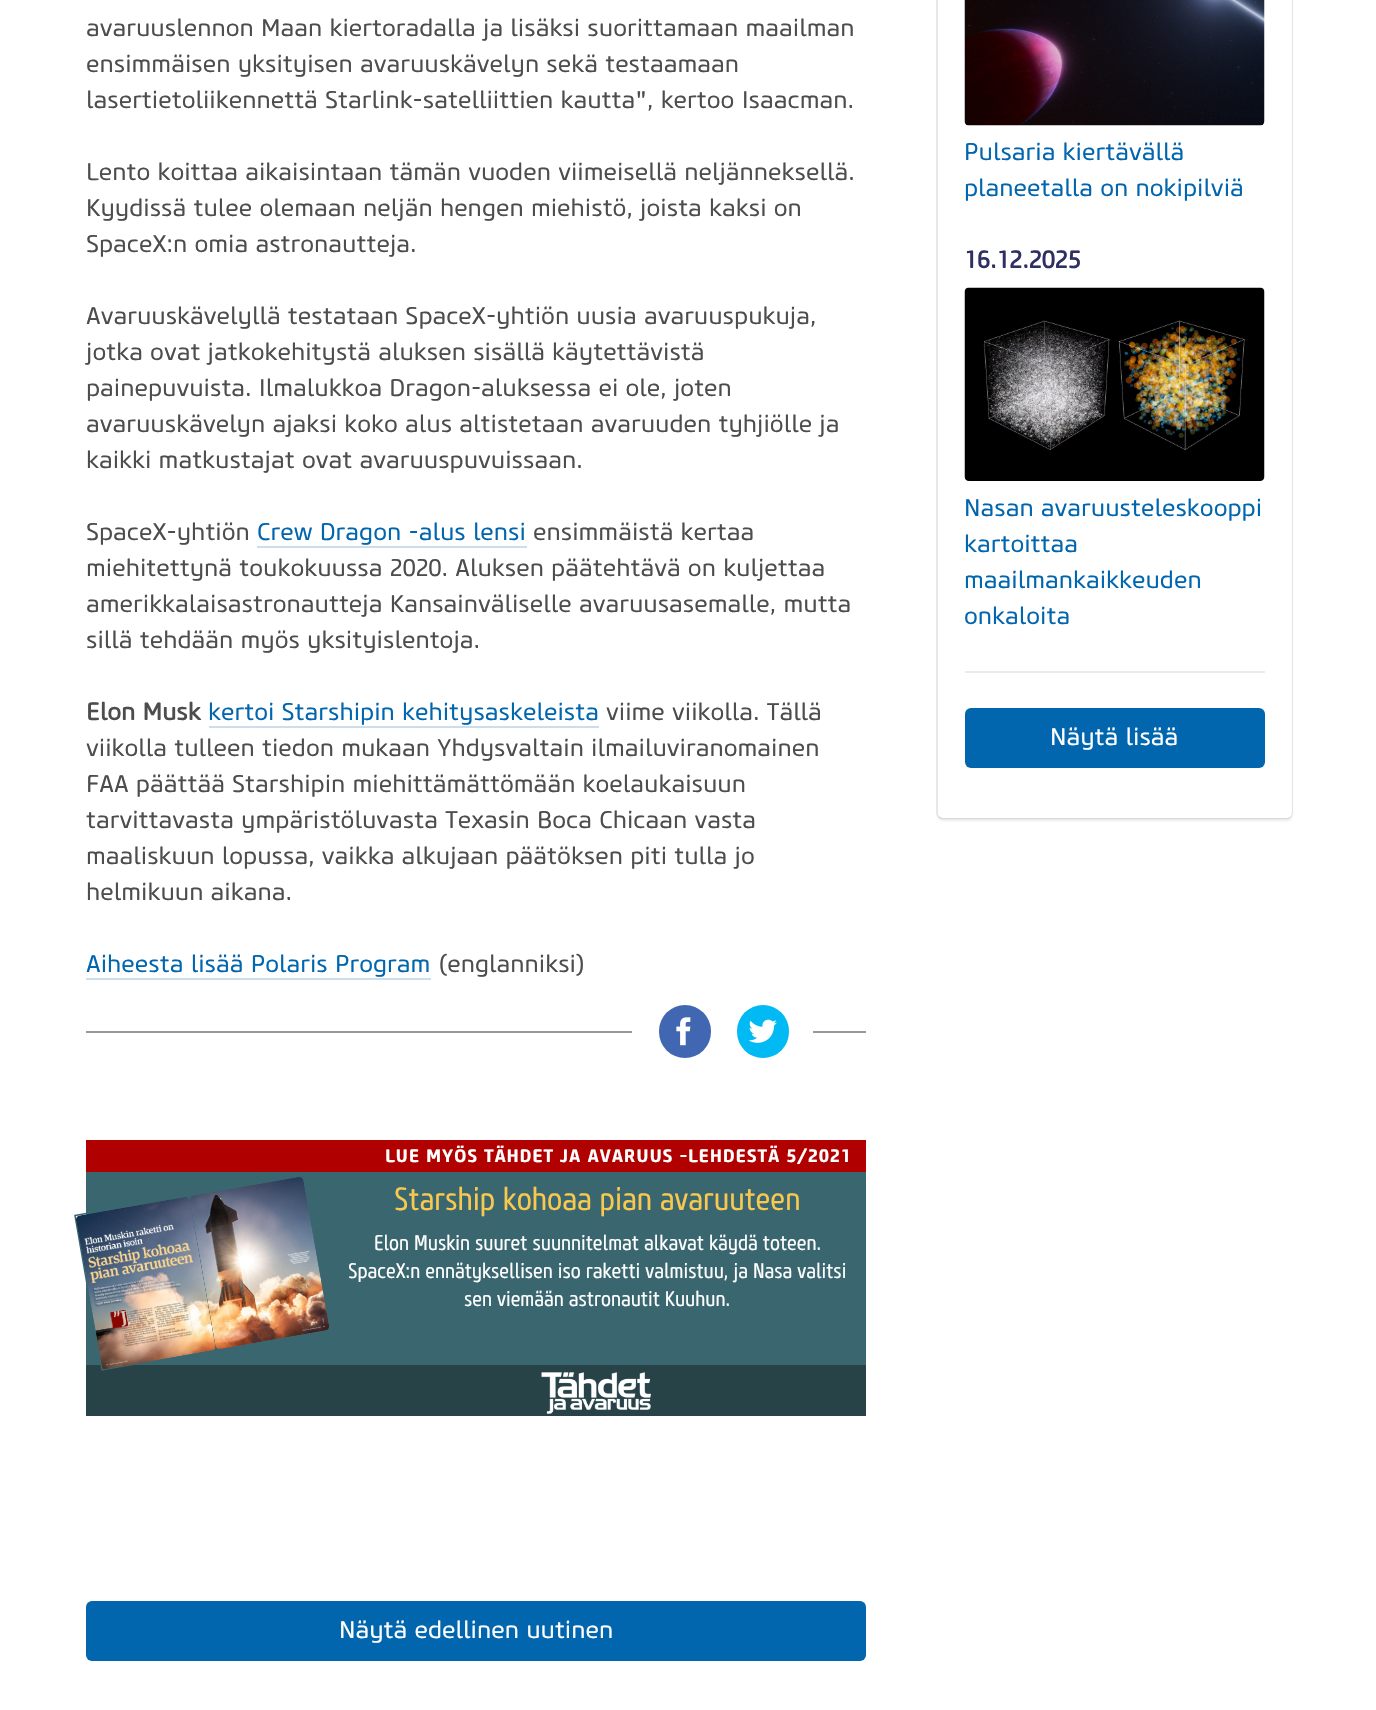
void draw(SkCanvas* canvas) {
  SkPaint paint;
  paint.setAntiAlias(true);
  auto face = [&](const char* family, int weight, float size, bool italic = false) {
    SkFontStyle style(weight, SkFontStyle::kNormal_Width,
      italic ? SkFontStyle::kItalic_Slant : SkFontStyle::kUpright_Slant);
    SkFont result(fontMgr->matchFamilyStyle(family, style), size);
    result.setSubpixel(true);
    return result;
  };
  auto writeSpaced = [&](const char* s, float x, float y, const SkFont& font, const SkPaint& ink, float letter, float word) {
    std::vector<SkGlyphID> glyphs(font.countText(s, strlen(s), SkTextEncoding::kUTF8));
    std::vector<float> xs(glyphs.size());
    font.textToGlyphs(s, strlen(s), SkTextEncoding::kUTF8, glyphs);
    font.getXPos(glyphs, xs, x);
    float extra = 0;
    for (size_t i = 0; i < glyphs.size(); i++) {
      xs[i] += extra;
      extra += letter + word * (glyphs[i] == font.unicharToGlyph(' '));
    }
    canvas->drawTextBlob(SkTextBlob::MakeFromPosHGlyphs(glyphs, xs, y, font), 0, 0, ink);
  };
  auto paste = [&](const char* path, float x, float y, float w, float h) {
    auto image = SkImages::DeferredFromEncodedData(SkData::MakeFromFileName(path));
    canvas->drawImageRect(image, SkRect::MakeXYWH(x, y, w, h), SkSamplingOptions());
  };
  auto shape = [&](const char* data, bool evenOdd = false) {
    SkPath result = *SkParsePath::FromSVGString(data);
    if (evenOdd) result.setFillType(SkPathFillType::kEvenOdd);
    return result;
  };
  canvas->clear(0xffffffff);
  {
    const struct { float x, y, w, h; SkColor color; } items[] = {
      {257, 546, 270, 2, 0xffccddee},
      {209, 726, 390, 2, 0xffccddee},
      {86, 978, 345, 2, 0xffccddee},
      {86, 1031, 780, 2, 0xff999999},
      {632, 1031, 181, 2, 0xffffffff},
    };
    for (auto [x, y, w, h, color] : items) {
      paint.setColor(color);
      canvas->drawRect(SkRect::MakeXYWH(x, y, w, h), paint);
    }
  }
  paint.setColor(0xff4267b2);
  canvas->drawRoundRect(SkRect::MakeXYWH(659, 1005, 52, 53), 26, 26, paint);
  paste("img/1.png", 676, 1017, 15, 29);
  paint.setColor(0xff01baf3);
  canvas->drawRoundRect(SkRect::MakeXYWH(737, 1005, 52, 53), 26, 26, paint);
  paste("img/2.png", 749, 1019, 28, 24);
  {
    const struct { float x, y, w, h; SkColor color; } items[] = {
      {86, 1172, 780, 193, 0xff3a6670},
      {86, 1140, 780, 32, 0xffb10000},
      {86, 1365, 780, 51, 0xff284348},
    };
    for (auto [x, y, w, h, color] : items) {
      paint.setColor(color);
      canvas->drawRect(SkRect::MakeXYWH(x, y, w, h), paint);
    }
  }
  paint.setStroke(true);
  paint.setStrokeWidth(1.5f);
  paint.setColor(0xff3a6670);
  canvas->drawPath(shape("M75 1215.5L303.5 1175.5L331 1329.5L102 1370Z"), paint);
  paste("img/3.png", 76, 1197, 140, 172);
  paste("img/4.png", 190, 1177, 139, 172);
  paste("img/5.png", 541, 1372, 110, 42);
  paint.setStroke(false);
  paint.setColor(0xff0166ae);
  canvas->drawRoundRect(SkRect::MakeXYWH(86, 1601, 780, 60), 6, 6, paint);
  paint.setColor(0x14000000);
  paint.setMaskFilter(SkMaskFilter::MakeBlur(kNormal_SkBlurStyle, 1));
  canvas->drawRoundRect(SkRect::MakeXYWH(938, -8, 354, 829), 5, 5, paint);
  paint.setMaskFilter(nullptr);
  paint.setStroke(true);
  paint.setStrokeWidth(2);
  canvas->drawRoundRect(SkRect::MakeXYWH(937, -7, 355, 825), 5, 5, paint);
  paint.setStroke(false);
  paint.setColor(0xffffffff);
  canvas->drawRoundRect(SkRect::MakeXYWH(938, -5, 354, 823), 5, 5, paint);
  paint.setColor(0xffebebeb);
  canvas->drawRect(SkRect::MakeXYWH(965, 671, 300, 2), paint);
  paste("img/6.png", 964, 0, 301, 126);
  paste("img/7.png", 964, 287, 301, 194);
  paint.setColor(0xff0166ae);
  canvas->drawRoundRect(SkRect::MakeXYWH(965, 708, 300, 60), 6, 6, paint);
  auto f0 = face("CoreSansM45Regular", 400, 24);
  paint.setColor(0xff4d4d4d);
  {
    const struct { const char* s; float x, y; } items[] = {
      {"avaruuslennon Maan kiertoradalla ja lisäksi suorittamaan maailman", 86, 36},
      {"ensimmäisen yksityisen avaruuskävelyn sekä testaamaan", 86, 72},
      {"lasertietoliikennettä Starlink-satelliittien kautta\", kertoo Isaacman.", 86, 108},
      {"Lento koittaa aikaisintaan tämän vuoden viimeisellä neljänneksellä.", 86, 180},
      {"Kyydissä tulee olemaan neljän hengen miehistö, joista kaksi on", 86, 216},
      {"SpaceX:n omia astronautteja.", 86, 252},
      {"Avaruuskävelyllä testataan SpaceX-yhtiön uusia avaruuspukuja,", 86, 324},
      {"jotka ovat jatkokehitystä aluksen sisällä käytettävistä", 86, 360},
      {"painepuvuista. Ilmalukkoa Dragon-aluksessa ei ole, joten", 86, 396},
      {"avaruuskävelyn ajaksi koko alus altistetaan avaruuden tyhjiölle ja", 86, 432},
      {"kaikki matkustajat ovat avaruuspuvuissaan.", 86, 468},
      {"SpaceX-yhtiön", 86, 540},
    };
    for (auto [s, x, y] : items) {
      canvas->drawString(s, x, y, f0, paint);
    }
  }
  paint.setColor(0xff0166ae);
  canvas->drawString("Crew Dragon -alus lensi", 257, 540, f0, paint);
  paint.setColor(0xff4d4d4d);
  {
    const struct { const char* s; float x, y; } items[] = {
      {"ensimmäistä kertaa", 533, 540},
      {"miehitettynä toukokuussa 2020. Aluksen päätehtävä on kuljettaa", 86, 576},
      {"amerikkalaisastronautteja Kansainväliselle avaruusasemalle, mutta", 86, 612},
      {"sillä tehdään myös yksityislentoja.", 86, 648},
    };
    for (auto [s, x, y] : items) {
      canvas->drawString(s, x, y, f0, paint);
    }
  }
  auto f1 = face("CoreSansM45Regular", 700, 24);
  canvas->drawString("Elon Musk", 86, 720, f1, paint);
  paint.setColor(0xff0166ae);
  canvas->drawString("kertoi Starshipin kehitysaskeleista", 208, 720, f0, paint);
  paint.setColor(0xff4d4d4d);
  {
    const struct { const char* s; float x, y; } items[] = {
      {"viime viikolla. Tällä", 606, 720},
      {"viikolla tulleen tiedon mukaan Yhdysvaltain ilmailuviranomainen", 86, 756},
      {"FAA päättää Starshipin miehittämättömään koelaukaisuun", 86, 792},
      {"tarvittavasta ympäristöluvasta Texasin Boca Chicaan vasta", 86, 828},
      {"maaliskuun lopussa, vaikka alkujaan päätöksen piti tulla jo", 86, 864},
      {"helmikuun aikana.", 86, 900},
    };
    for (auto [s, x, y] : items) {
      canvas->drawString(s, x, y, f0, paint);
    }
  }
  paint.setColor(0xff0166ae);
  canvas->drawString("Aiheesta lisää Polaris Program", 86, 972, f0, paint);
  paint.setColor(0xff4d4d4d);
  canvas->drawString("(englanniksi)", 438, 972, f0, paint);
  auto f2 = face("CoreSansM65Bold", 700, 18);
  paint.setColor(0xffffffff);
  writeSpaced("LUE MYÖS TÄHDET JA AVARUUS -LEHDESTÄ 5/2021", 385, 1162, f2, paint, 0.75f, 0);
  auto f3 = face("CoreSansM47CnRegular", 400, 32);
  paint.setColor(0xfff8c84f);
  canvas->drawString("Starship kohoaa pian avaruuteen", 394, 1210, f3, paint);
  auto f4 = face("CoreSansM47CnRegular", 400, 21);
  paint.setColor(0xffffffff);
  {
    const struct { const char* s; float x, y; } items[] = {
      {"Elon Muskin suuret suunnitelmat alkavat käydä toteen.", 374, 1250},
      {"SpaceX:n ennätyksellisen iso raketti valmistuu, ja Nasa valitsi", 348, 1278},
      {"sen viemään astronautit Kuuhun.", 464, 1306},
    };
    for (auto [s, x, y] : items) {
      canvas->drawString(s, x, y, f4, paint);
    }
  }
  canvas->drawString("Näytä edellinen uutinen", 339, 1638, f0, paint);
  paint.setColor(0xff0166ae);
  canvas->drawString("Pulsaria kiertävällä", 964, 160, f0, paint);
  canvas->drawString("planeetalla on nokipilviä", 964, 196, f0, paint);
  paint.setColor(0xff2f2f63);
  canvas->drawString("16.12.2025", 964, 268, f1, paint);
  paint.setColor(0xff0166ae);
  {
    const struct { const char* s; float x, y; } items[] = {
      {"Nasan avaruusteleskooppi", 964, 516},
      {"kartoittaa", 964, 552},
      {"maailmankaikkeuden", 964, 588},
      {"onkaloita", 964, 624},
    };
    for (auto [s, x, y] : items) {
      canvas->drawString(s, x, y, f0, paint);
    }
  }
  paint.setColor(0xffffffff);
  canvas->drawString("Näytä lisää", 1050, 745, f0, paint);
}
